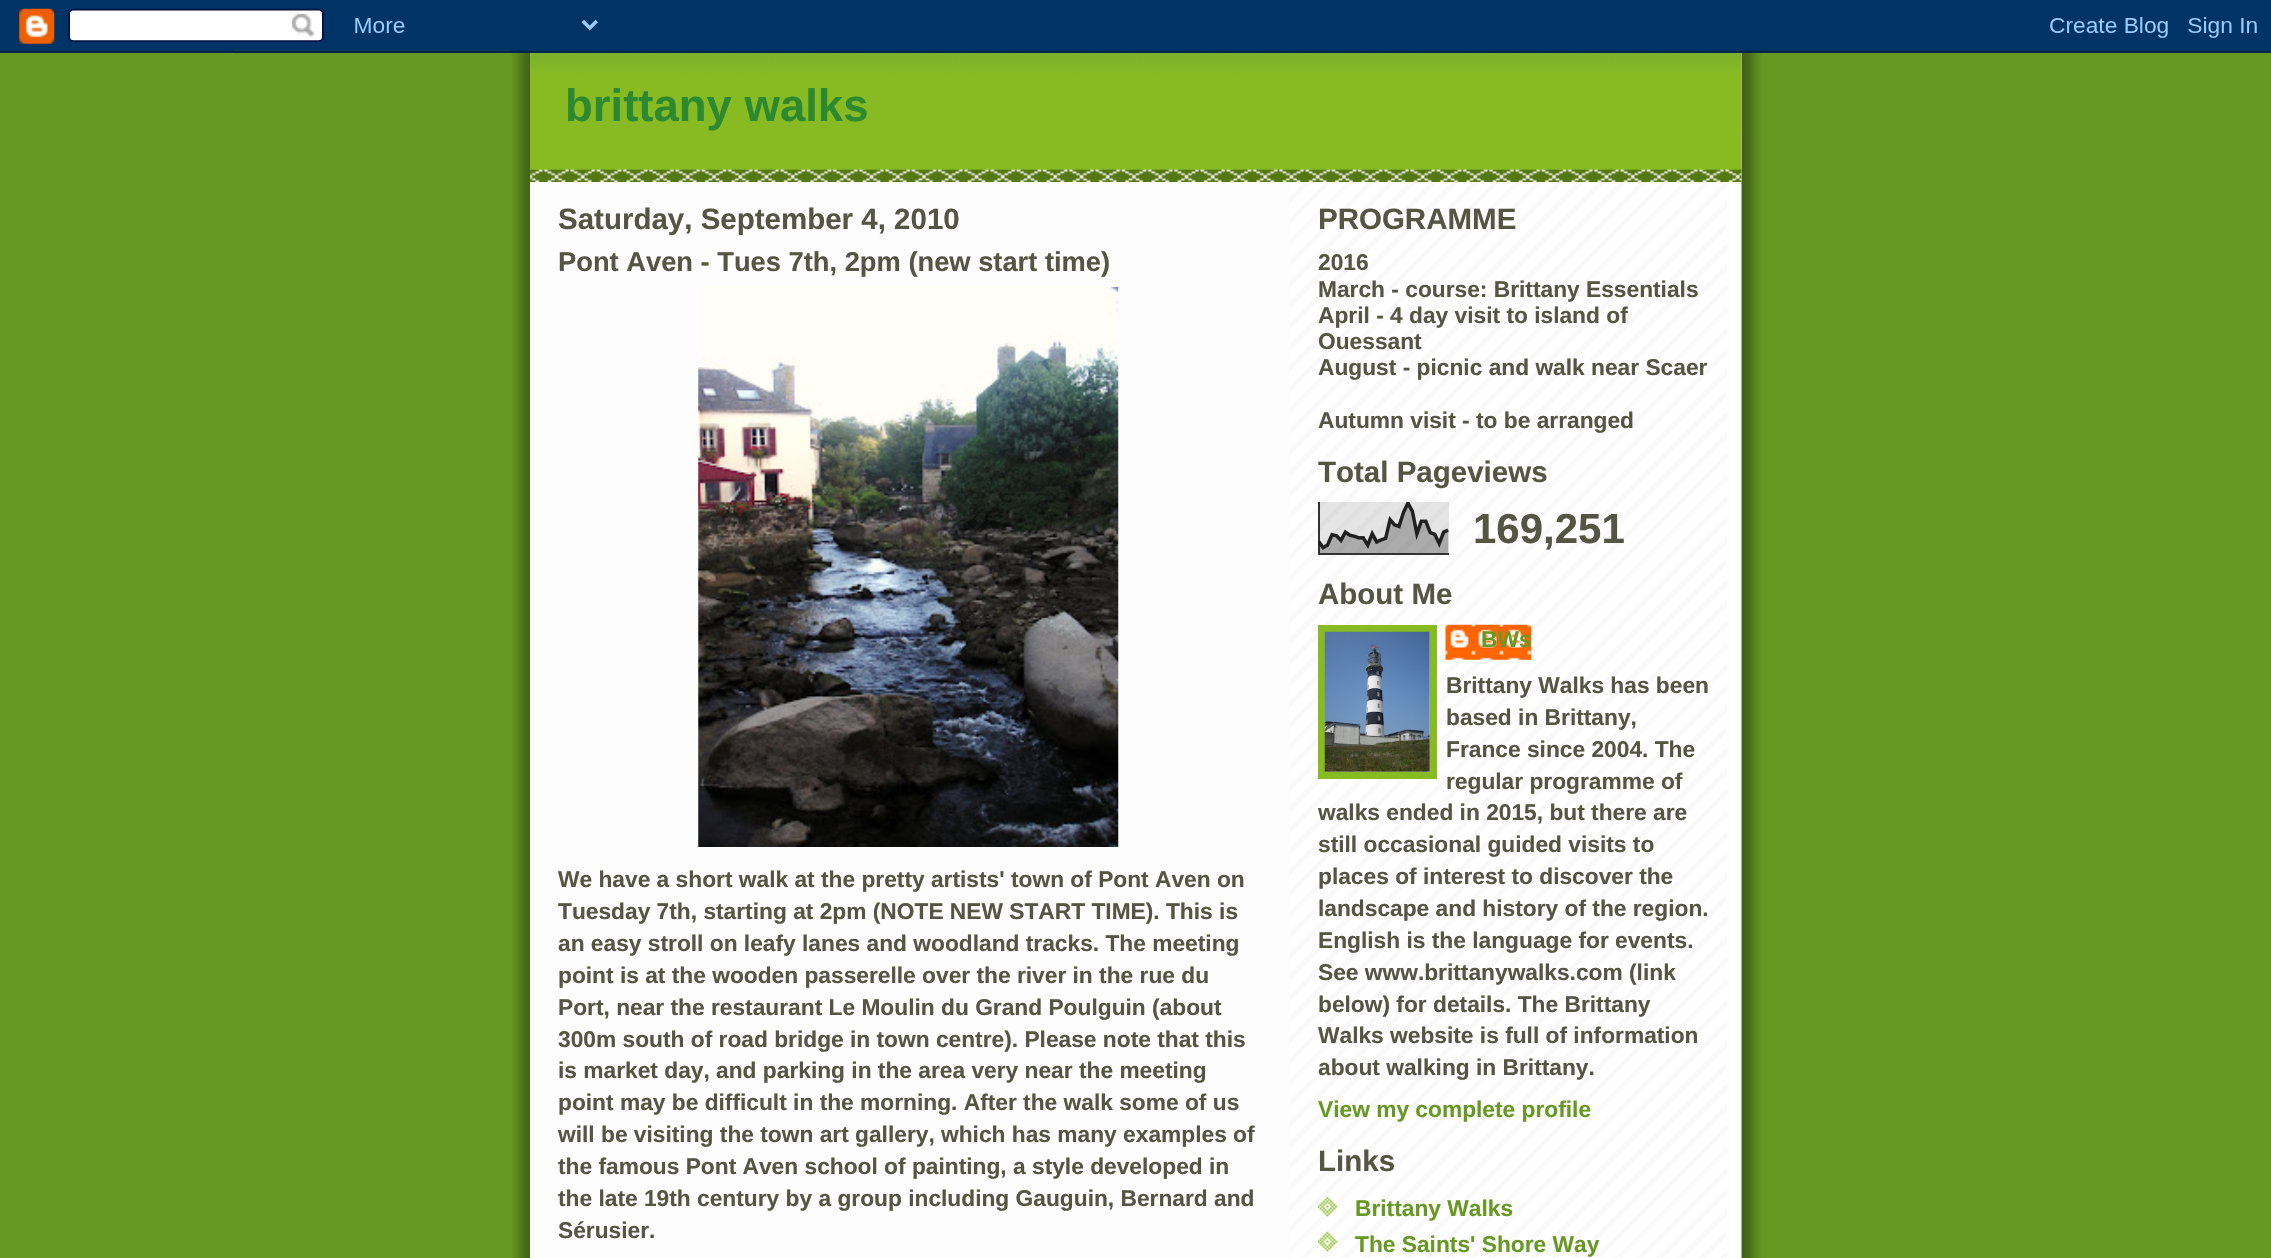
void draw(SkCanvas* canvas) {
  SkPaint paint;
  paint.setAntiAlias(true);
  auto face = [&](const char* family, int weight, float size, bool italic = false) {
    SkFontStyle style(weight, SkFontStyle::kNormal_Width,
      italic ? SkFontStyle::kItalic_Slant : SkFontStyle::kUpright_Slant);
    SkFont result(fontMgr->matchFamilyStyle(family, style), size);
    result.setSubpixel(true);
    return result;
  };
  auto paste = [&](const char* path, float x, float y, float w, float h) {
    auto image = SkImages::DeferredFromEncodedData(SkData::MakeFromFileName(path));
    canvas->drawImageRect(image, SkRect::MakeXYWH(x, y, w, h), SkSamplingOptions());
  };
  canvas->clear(0xff669922);
  paste("img/1.png", 512, 50, 1250, 1208);
  paste("img/2.png", 0, 0, 2271, 53);
  paint.setColor(0xffffffff);
  canvas->drawRect(SkRect::MakeXYWH(530, 182, 3, 1076), paint);
  paste("img/3.png", 1290, 53, 452, 1205);
  paint.setColor(0xff88bb22);
  canvas->drawRect(SkRect::MakeXYWH(530, 53, 1211, 129), paint);
  paste("img/4.png", 530, 168, 1212, 14);
  paste("img/5.png", 530, 53, 1212, 80);
  paste("img/6.png", 698, 287, 421, 560);
  paste("img/7.png", 1318, 502, 131, 53);
  paint.setStroke(true);
  paint.setStrokeWidth(7);
  canvas->drawRect(SkRect::MakeXYWH(1321.5f, 628.5f, 112, 147), paint);
  paste("img/8.png", 1324, 631, 106, 141);
  paste("img/9.png", 1445, 624, 87, 36);
  paste("img/10.png", 1317, 1196, 21, 21);
  paste("img/11.png", 1317, 1231, 21, 21);
  auto f0 = face("Liberation Sans", 700, 45.5f);
  paint.setStroke(false);
  paint.setColor(0xff2d8930);
  canvas->drawString("brittany walks", 565, 121, f0, paint);
  auto f1 = face("Liberation Sans", 700, 29.5f);
  paint.setColor(0xff555544);
  canvas->drawString("Saturday, September 4, 2010", 558, 229, f1, paint);
  auto f2 = face("Liberation Sans", 700, 27.3f);
  canvas->drawString("Pont Aven - Tues 7th, 2pm (new start time)", 558, 271, f2, paint);
  auto f3 = face("Liberation Sans", 700, 22.75f);
  {
    const struct { const char* s; float x, y; } items[] = {
      {"We have a short walk at the pretty artists' town of Pont Aven on", 558, 887},
      {"Tuesday 7th, starting at 2pm (NOTE NEW START TIME). This is", 558, 919},
      {"an easy stroll on leafy lanes and woodland tracks. The meeting", 558, 951},
      {"point is at the wooden passerelle over the river in the rue du", 558, 983},
      {"Port, near the restaurant Le Moulin du Grand Poulguin (about", 558, 1015},
      {"300m south of road bridge in town centre). Please note that this", 558, 1047},
      {"is market day, and parking in the area very near the meeting", 558, 1078},
      {"point may be difficult in the morning. After the walk some of us", 558, 1110},
      {"will be visiting the town art gallery, which has many examples of", 558, 1142},
      {"the famous Pont Aven school of painting, a style developed in", 558, 1174},
      {"the late 19th century by a group including Gauguin, Bernard and", 558, 1206},
      {"Sérusier.", 558, 1238},
    };
    for (auto [s, x, y] : items) {
      canvas->drawString(s, x, y, f3, paint);
    }
  }
  canvas->drawString("PROGRAMME", 1318, 229, f1, paint);
  {
    const struct { const char* s; float x, y; } items[] = {
      {"2016", 1318, 270},
      {"March - course: Brittany Essentials", 1318, 297},
      {"April - 4 day visit to island of", 1318, 323},
      {"Ouessant", 1318, 349},
      {"August - picnic and walk near Scaer", 1318, 375},
      {"Autumn visit - to be arranged", 1318, 428},
    };
    for (auto [s, x, y] : items) {
      canvas->drawString(s, x, y, f3, paint);
    }
  }
  canvas->drawString("Total Pageviews", 1318, 482, f1, paint);
  auto f4 = face("Liberation Sans", 700, 42);
  canvas->drawString("169,251", 1473, 543, f4, paint);
  canvas->drawString("About Me", 1318, 604, f1, paint);
  paint.setColor(0xff669922);
  canvas->drawString("BWs", 1481, 647, f3, paint);
  paint.setColor(0xff555544);
  {
    const struct { const char* s; float x, y; } items[] = {
      {"Brittany Walks has been", 1446, 693},
      {"based in Brittany,", 1446, 725},
      {"France since 2004. The", 1446, 757},
      {"regular programme of", 1446, 789},
      {"walks ended in 2015, but there are", 1318, 820},
      {"still occasional guided visits to", 1318, 852},
      {"places of interest to discover the", 1318, 884},
      {"landscape and history of the region.", 1318, 916},
      {"English is the language for events.", 1318, 948},
      {"See www.brittanywalks.com (link", 1318, 980},
      {"below) for details. The Brittany", 1318, 1012},
      {"Walks website is full of information", 1318, 1043},
      {"about walking in Brittany.", 1318, 1075},
    };
    for (auto [s, x, y] : items) {
      canvas->drawString(s, x, y, f3, paint);
    }
  }
  paint.setColor(0xff669922);
  canvas->drawString("View my complete profile", 1318, 1117, f3, paint);
  paint.setColor(0xff555544);
  canvas->drawString("Links", 1318, 1171, f1, paint);
  paint.setColor(0xff669922);
  canvas->drawString("Brittany Walks", 1355, 1216, f3, paint);
  canvas->drawString("The Saints' Shore Way", 1355, 1252, f3, paint);
}
